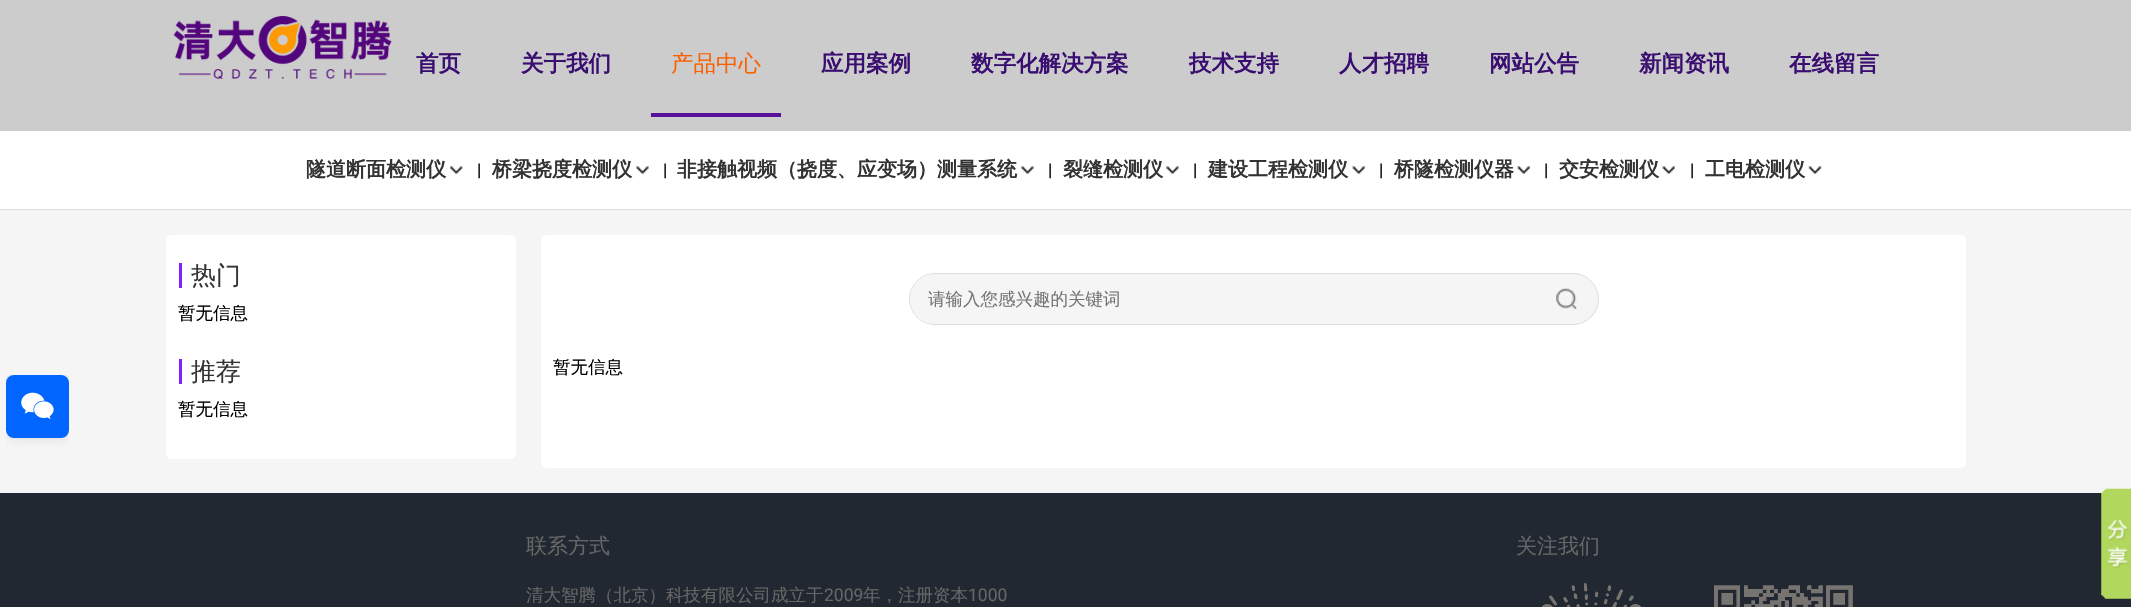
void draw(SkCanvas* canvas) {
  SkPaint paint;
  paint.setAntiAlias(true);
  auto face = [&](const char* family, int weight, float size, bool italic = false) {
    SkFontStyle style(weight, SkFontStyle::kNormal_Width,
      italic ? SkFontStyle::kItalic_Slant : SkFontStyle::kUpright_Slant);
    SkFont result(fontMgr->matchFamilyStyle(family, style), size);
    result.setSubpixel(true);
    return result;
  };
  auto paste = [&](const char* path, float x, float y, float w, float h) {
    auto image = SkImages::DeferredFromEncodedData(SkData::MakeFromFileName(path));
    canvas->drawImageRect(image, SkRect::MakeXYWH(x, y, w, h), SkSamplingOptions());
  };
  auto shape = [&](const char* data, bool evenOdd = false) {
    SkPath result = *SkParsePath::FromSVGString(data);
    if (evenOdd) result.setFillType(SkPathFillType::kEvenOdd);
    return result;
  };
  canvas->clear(0xfff5f5f5);
  paint.setColor(0xffcccccc);
  canvas->drawRect(SkRect::MakeXYWH(0, 0, 2131, 131), paint);
  paste("img/1.png", 173, 16, 219, 63);
  {
    const struct { float x, y, w, h; SkColor color; } items[] = {
      {651, 113, 130, 4, 0xff581299},
      {0, 131, 2131, 78, 0xffffffff},
      {0, 209, 2131, 1, 0xffdddddd},
    };
    for (auto [x, y, w, h, color] : items) {
      paint.setColor(color);
      canvas->drawRect(SkRect::MakeXYWH(x, y, w, h), paint);
    }
  }
  paste("img/2.png", 450, 166, 13, 8);
  paste("img/3.png", 636, 166, 13, 8);
  paste("img/3.png", 1021, 166, 13, 8);
  paste("img/3.png", 1166, 166, 13, 8);
  paste("img/4.png", 1352, 166, 13, 8);
  paste("img/4.png", 1517, 166, 13, 8);
  paste("img/5.png", 1662, 166, 13, 8);
  paste("img/6.png", 1808, 166, 14, 8);
  canvas->save();
  canvas->clipRect(SkRect::MakeXYWH(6, 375, 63, 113));
  paint.setColor(0x1a000000);
  paint.setMaskFilter(SkMaskFilter::MakeBlur(kNormal_SkBlurStyle, 5.5f));
  canvas->drawRoundRect(SkRect::MakeXYWH(6, 375, 63, 63), 8, 8, paint);
  paint.setMaskFilter(nullptr);
  canvas->restore();
  paint.setColor(0xff0066ff);
  canvas->drawRoundRect(SkRect::MakeXYWH(6, 375, 63, 63), 8, 8, paint);
  paste("img/7.png", 21, 392, 33, 27);
  paint.setColor(0xffffffff);
  canvas->drawRoundRect(SkRect::MakeXYWH(166, 235, 350, 224), 5, 5, paint);
  paint.setColor(0xff8420ff);
  canvas->drawRect(SkRect::MakeXYWH(179, 263, 3, 25), paint);
  canvas->drawRect(SkRect::MakeXYWH(179, 359, 3, 25), paint);
  paint.setColor(0xffffffff);
  canvas->drawRoundRect(SkRect::MakeXYWH(541, 235, 1425, 233), 5, 5, paint);
  paint.setColor(0xfff5f5f5);
  canvas->drawRoundRect(SkRect::MakeXYWH(909.5f, 273.5f, 689, 51), 25.5f, 25.5f, paint);
  paint.setStroke(true);
  paint.setStrokeWidth(1);
  paint.setColor(0xffdddddd);
  canvas->drawRoundRect(SkRect::MakeXYWH(909.5f, 273.5f, 689, 51), 25.5f, 25.5f, paint);
  paint.setStroke(false);
  paint.setColor(0xfff5f5f5);
  canvas->drawPath(shape("M935 274H1456C1458 274 1460 276 1460 278V320C1460 322 1458 324 1456 324H935C921 324 910 313 910 299C910 285 921 274 935 274Z"), paint);
  paste("img/8.png", 1556, 288, 21, 21);
  paint.setColor(0xff222831);
  canvas->drawRect(SkRect::MakeXYWH(0, 493, 2131, 114), paint);
  paste("img/9.png", 1542, 583, 99, 24);
  paste("img/10.png", 1714, 585, 139, 22);
  paste("img/11.png", 2101, 488, 30, 111);
  auto f0 = face("WenQuanYi Zen Hei", 700, 22.5f);
  paint.setColor(0xff3a0e71);
  canvas->drawString("首页", 416, 71, f0, paint);
  canvas->drawString("关于我们", 521, 71, f0, paint);
  auto f1 = face("WenQuanYi Zen Hei", 500, 22.5f);
  paint.setColor(0xfffd5f00);
  canvas->drawString("产品中心", 671, 71, f1, paint);
  paint.setColor(0xff3a0e71);
  {
    const struct { const char* s; float x, y; } items[] = {
      {"应用案例", 821, 71},
      {"数字化解决方案", 971, 71},
      {"技术支持", 1189, 71},
      {"人才招聘", 1339, 71},
      {"网站公告", 1489, 71},
      {"新闻资讯", 1639, 71},
      {"在线留言", 1789, 71},
    };
    for (auto [s, x, y] : items) {
      canvas->drawString(s, x, y, f0, paint);
    }
  }
  auto f2 = face("WenQuanYi Zen Hei", 700, 20);
  paint.setColor(0xff333333);
  canvas->drawString("隧道断面检测仪", 306, 176, f2, paint);
  auto f3 = face("Roboto", 400, 17.5f);
  paint.setColor(0xff000000);
  canvas->drawString("|", 477, 176, f3, paint);
  paint.setColor(0xff333333);
  canvas->drawString("桥梁挠度检测仪", 492, 176, f2, paint);
  paint.setColor(0xff000000);
  canvas->drawString("|", 663, 176, f3, paint);
  paint.setColor(0xff333333);
  canvas->drawString("非接触视频（挠度、应变场）测量系统", 677, 176, f2, paint);
  paint.setColor(0xff000000);
  canvas->drawString("|", 1048, 176, f3, paint);
  paint.setColor(0xff333333);
  canvas->drawString("裂缝检测仪", 1063, 176, f2, paint);
  paint.setColor(0xff000000);
  canvas->drawString("|", 1193, 176, f3, paint);
  paint.setColor(0xff333333);
  canvas->drawString("建设工程检测仪", 1208, 176, f2, paint);
  paint.setColor(0xff000000);
  canvas->drawString("|", 1379, 176, f3, paint);
  paint.setColor(0xff333333);
  canvas->drawString("桥隧检测仪器", 1394, 176, f2, paint);
  paint.setColor(0xff000000);
  canvas->drawString("|", 1544, 176, f3, paint);
  paint.setColor(0xff333333);
  canvas->drawString("交安检测仪", 1559, 176, f2, paint);
  paint.setColor(0xff000000);
  canvas->drawString("|", 1690, 176, f3, paint);
  paint.setColor(0xff333333);
  canvas->drawString("工电检测仪", 1705, 176, f2, paint);
  auto f4 = face("WenQuanYi Zen Hei", 500, 25);
  canvas->drawString("热门", 191, 284, f4, paint);
  auto f5 = face("WenQuanYi Zen Hei", 500, 17.5f);
  paint.setColor(0xff000000);
  canvas->drawString("暂无信息", 178, 319, f5, paint);
  paint.setColor(0xff333333);
  canvas->drawString("推荐", 191, 380, f4, paint);
  paint.setColor(0xff000000);
  canvas->drawString("暂无信息", 178, 415, f5, paint);
  paint.setColor(0xff757575);
  canvas->drawString("请输入您感兴趣的关键词", 928, 305, f5, paint);
  paint.setColor(0xff000000);
  canvas->drawString("暂无信息", 553, 373, f5, paint);
  auto f6 = face("WenQuanYi Zen Hei", 500, 21);
  paint.setColor(0xff666666);
  canvas->drawString("联系方式", 526, 553, f6, paint);
  canvas->drawString("清大智腾（北京）科技有限公司成立于", 526, 601, f5, paint);
  canvas->drawString("2009", 824, 601, f3, paint);
  canvas->drawString("年，注册资本", 863, 601, f5, paint);
  canvas->drawString("1000", 968, 601, f3, paint);
  canvas->drawString("关注我们", 1516, 553, f6, paint);
}
